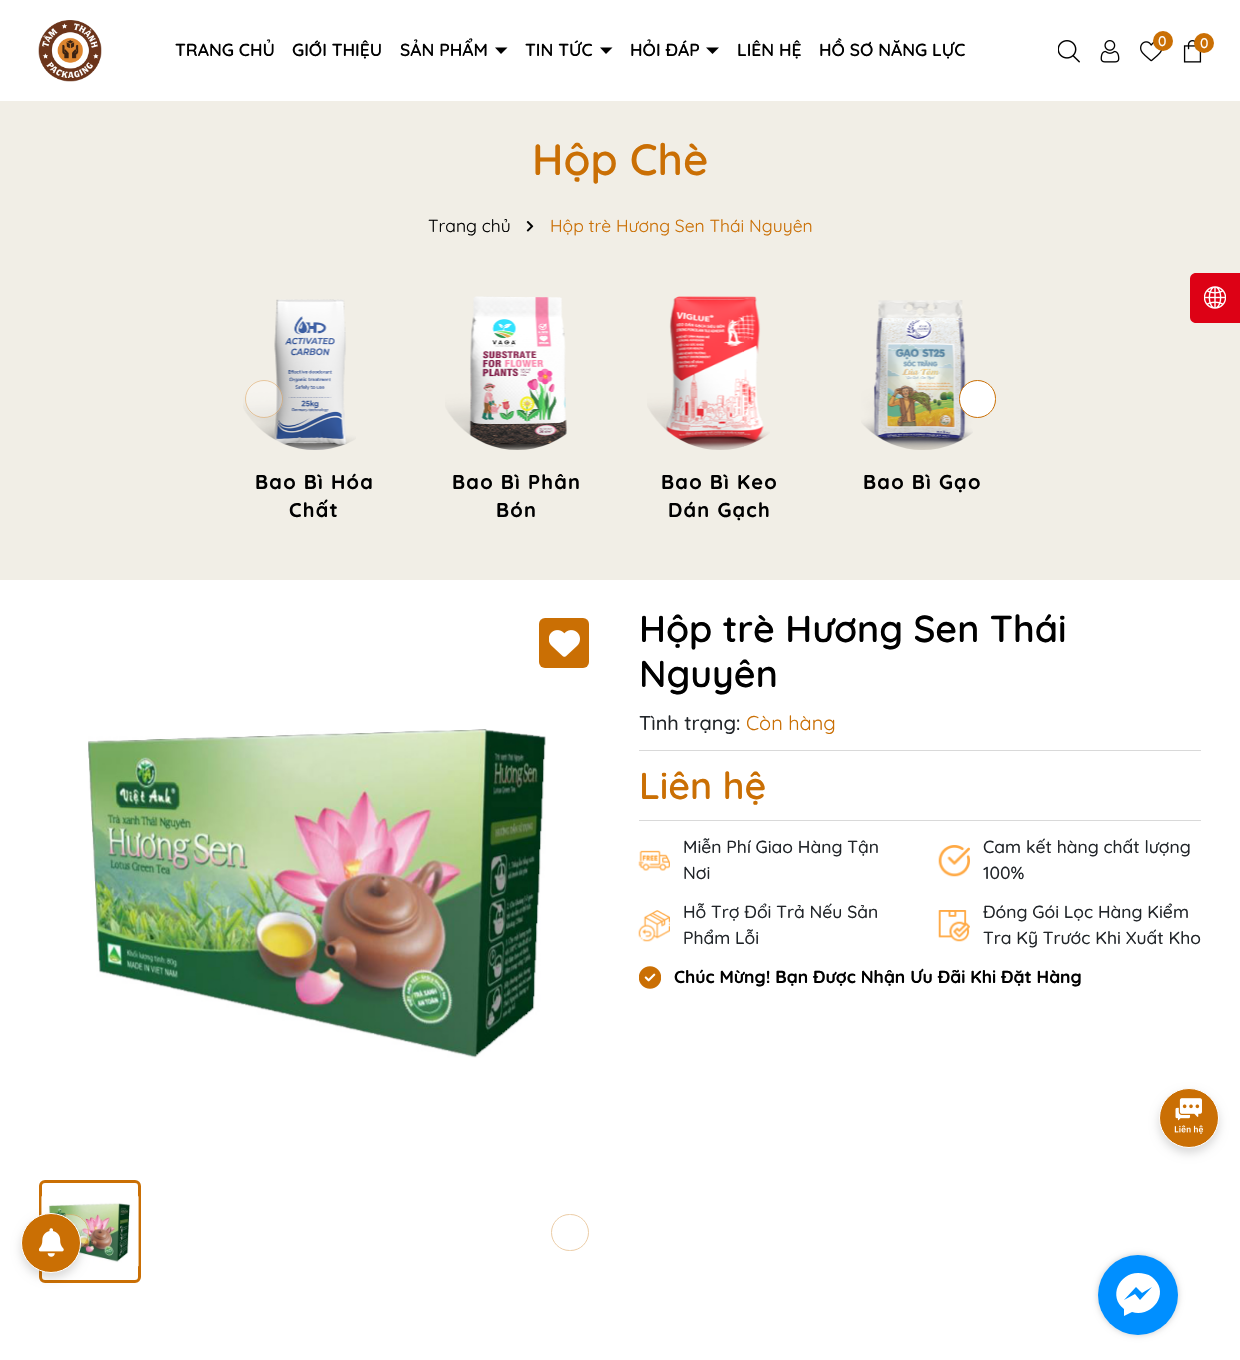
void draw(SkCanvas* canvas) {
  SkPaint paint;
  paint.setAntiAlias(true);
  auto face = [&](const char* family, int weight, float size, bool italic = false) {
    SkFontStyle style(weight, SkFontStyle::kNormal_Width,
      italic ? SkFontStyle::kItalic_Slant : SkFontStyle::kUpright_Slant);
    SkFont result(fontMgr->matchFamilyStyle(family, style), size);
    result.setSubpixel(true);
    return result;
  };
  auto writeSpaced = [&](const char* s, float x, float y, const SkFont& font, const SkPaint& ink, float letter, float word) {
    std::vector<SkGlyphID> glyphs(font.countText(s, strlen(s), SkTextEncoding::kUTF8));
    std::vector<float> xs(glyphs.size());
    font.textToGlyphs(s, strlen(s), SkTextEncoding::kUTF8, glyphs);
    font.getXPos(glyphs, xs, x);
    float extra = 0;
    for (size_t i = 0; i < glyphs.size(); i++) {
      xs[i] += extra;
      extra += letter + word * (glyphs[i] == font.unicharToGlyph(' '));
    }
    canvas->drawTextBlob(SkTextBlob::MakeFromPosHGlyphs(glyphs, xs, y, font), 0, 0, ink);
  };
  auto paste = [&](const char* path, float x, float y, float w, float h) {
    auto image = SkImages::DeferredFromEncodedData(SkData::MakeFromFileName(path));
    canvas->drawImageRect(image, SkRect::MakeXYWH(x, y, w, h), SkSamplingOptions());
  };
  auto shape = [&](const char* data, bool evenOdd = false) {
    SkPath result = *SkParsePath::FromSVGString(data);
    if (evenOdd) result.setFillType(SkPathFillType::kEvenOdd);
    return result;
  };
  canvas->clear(0xffffffff);
  paste("img/1.png", 38, 20, 64, 62);
  paint.setColor(0xff000000);
  canvas->drawPath(shape("M495 47.5H507.5L501 54Z"), paint);
  canvas->drawPath(shape("M600 47.5H612.5L606 54Z"), paint);
  canvas->drawPath(shape("M706 47.5H719L712.5 54Z"), paint);
  paste("img/2.png", 1058, 40, 22, 23);
  paste("img/3.png", 1100, 40, 20, 23);
  paste("img/4.png", 1140, 41, 23, 21);
  paint.setColor(0xffca6f04);
  canvas->drawCircle(1163, 41, 10, paint);
  paste("img/5.png", 1183, 40, 19, 23);
  canvas->drawCircle(1204, 43, 10, paint);
  paint.setColor(0xfff1eee6);
  canvas->drawRect(SkRect::MakeXYWH(0, 101, 1240, 479), paint);
  paste("img/6.png", 526, 221, 8, 11);
  paste("img/7.png", 243, 299, 113, 151);
  paint.setColor(0x59ffffff);
  canvas->drawCircle(264, 399, 19, paint);
  paint.setStroke(true);
  paint.setStrokeWidth(1);
  paint.setColor(0x59ca6f04);
  canvas->drawCircle(264, 399, 18.5f, paint);
  paste("img/10.png", 861, 300, 112, 150);
  paint.setStroke(false);
  paint.setColor(0xffffffff);
  canvas->drawRoundRect(SkRect::MakeXYWH(959.5f, 380.5f, 36, 37), 18, 18, paint);
  paint.setStroke(true);
  paint.setColor(0xffca6f04);
  canvas->drawRoundRect(SkRect::MakeXYWH(959.5f, 380.5f, 36, 37), 18, 18, paint);
  paste("img/8.png", 445, 296, 122, 154);
  paste("img/9.png", 647, 296, 123, 154);
  paint.setStroke(false);
  canvas->drawRoundRect(SkRect::MakeXYWH(539, 618, 50, 50), 6, 6, paint);
  paste("img/11.png", 549, 630, 31, 27);
  paste("img/12.png", 88, 729, 458, 329);
  paint.setStroke(true);
  paint.setStrokeWidth(3);
  canvas->drawRoundRect(SkRect::MakeXYWH(40.5f, 1181.5f, 99, 100), 4.5f, 4.5f, paint);
  paste("img/13.png", 41, 1195, 98, 72);
  paint.setStroke(false);
  paint.setColor(0x59ffffff);
  canvas->drawRoundRect(SkRect::MakeXYWH(51, 1214, 38, 37), 18.5f, 18.5f, paint);
  paint.setStroke(true);
  paint.setStrokeWidth(1);
  paint.setColor(0x59ca6f04);
  canvas->drawRoundRect(SkRect::MakeXYWH(51.5f, 1214.5f, 37, 36), 18, 18, paint);
  paint.setColor(0xffeccda7);
  canvas->drawRoundRect(SkRect::MakeXYWH(551.5f, 1214.5f, 37, 36), 18, 18, paint);
  paint.setStroke(false);
  paint.setColor(0xffd9d9d9);
  canvas->drawRect(SkRect::MakeXYWH(639, 750, 562, 1), paint);
  canvas->drawRect(SkRect::MakeXYWH(639, 820, 562, 1), paint);
  paste("img/14.png", 638, 850, 32, 21);
  paste("img/15.png", 938, 845, 32, 32);
  paste("img/16.png", 638, 910, 32, 32);
  paste("img/17.png", 938, 910, 32, 32);
  paste("img/18.png", 639, 966, 22, 23);
  paint.setColor(0xffdd0115);
  canvas->drawPath(shape("M1196 273H1240V323H1196C1192.5 323 1190 320.5 1190 317V279C1190 275.5 1192.5 273 1196 273Z"), paint);
  paste("img/19.png", 1204, 286, 22, 23);
  paint.setColor(0x26000000);
  paint.setMaskFilter(SkMaskFilter::MakeBlur(kNormal_SkBlurStyle, 5));
  canvas->drawRoundRect(SkRect::MakeXYWH(1159, 1093, 60, 60), 30, 30, paint);
  paint.setMaskFilter(nullptr);
  paint.setColor(0xffca6f04);
  canvas->drawCircle(1189, 1118, 29.5f, paint);
  paint.setStroke(true);
  paint.setColor(0xffffffff);
  canvas->drawCircle(1189, 1118, 29.5f, paint);
  paste("img/20.png", 1174, 1098, 30, 36);
  paint.setStroke(false);
  paint.setColor(0x26000000);
  paint.setMaskFilter(SkMaskFilter::MakeBlur(kNormal_SkBlurStyle, 5));
  canvas->drawRoundRect(SkRect::MakeXYWH(21, 1218, 60, 60), 30, 30, paint);
  paint.setMaskFilter(nullptr);
  paint.setColor(0xffca6f04);
  canvas->drawCircle(51, 1243, 29.5f, paint);
  paint.setStroke(true);
  paint.setColor(0xffffffff);
  canvas->drawCircle(51, 1243, 29.5f, paint);
  paste("img/21.png", 39, 1228, 25, 29);
  paint.setStroke(false);
  paint.setColor(0x33000000);
  paint.setMaskFilter(SkMaskFilter::MakeBlur(kNormal_SkBlurStyle, 3));
  canvas->drawRoundRect(SkRect::MakeXYWH(1098, 1255, 80, 80), 40, 40, paint);
  paint.setMaskFilter(nullptr);
  paint.setColor(0xff008fff);
  canvas->drawCircle(1138, 1295, 40, paint);
  paint.setColor(0xffffffff);
  canvas->drawPath(shape("M1138 1273C1119 1273 1108 1297 1124 1309V1316L1132 1312C1153 1318 1171 1292 1152 1277C1148 1274 1143 1273 1138 1273ZM1140 1300L1135 1294L1124 1300L1136 1287L1142 1293L1152 1287Z"), paint);
  auto f0 = face("Quicksand", 600, 17.5f);
  paint.setColor(0xff000000);
  {
    const struct { const char* s; float x, y; } items[] = {
      {"TRANG CHỦ", 175, 56},
      {"GIỚI THIỆU", 292, 56},
      {"SẢN PHẨM", 400, 56},
      {"TIN TỨC", 525, 56},
      {"HỎI ĐÁP", 630, 56},
      {"LIÊN HỆ", 737, 56},
      {"HỒ SƠ NĂNG LỰC", 819, 56},
    };
    for (auto [s, x, y] : items) {
      canvas->drawString(s, x, y, f0, paint);
    }
  }
  auto f1 = face("Quicksand", 500, 14);
  paint.setColor(0xffffffff);
  canvas->drawString("0", 1158, 46, f1, paint);
  canvas->drawString("0", 1200, 48, f1, paint);
  auto f2 = face("Quicksand", 600, 43.75f);
  paint.setColor(0xffca6f04);
  canvas->drawString("Hộp Chè", 532, 175, f2, paint);
  auto f3 = face("Quicksand", 400, 17.5f);
  paint.setColor(0xff000000);
  canvas->drawString("Trang chủ", 428, 232, f3, paint);
  paint.setColor(0xffca6f04);
  canvas->drawString("Hộp trè Hương Sen Thái Nguyên", 550, 232, f3, paint);
  auto f4 = face("Quicksand", 700, 20);
  paint.setColor(0xff000000);
  {
    const struct { const char* s; float x, y; } items[] = {
      {"Bao Bì Hóa", 255, 489},
      {"Chất", 289, 517},
      {"Bao Bì Phân", 452, 489},
      {"Bón", 496, 517},
      {"Bao Bì Keo", 661, 489},
      {"Dán Gạch", 668, 517},
      {"Bao Bì Gạo", 863, 489},
    };
    for (auto [s, x, y] : items) {
      writeSpaced(s, x, y, f4, paint, 1.25f, 0);
    }
  }
  auto f5 = face("Quicksand", 600, 37.5f);
  canvas->drawString("Hộp trè Hương Sen Thái", 639, 642, f5, paint);
  canvas->drawString("Nguyên", 639, 687, f5, paint);
  auto f6 = face("Quicksand", 500, 20);
  paint.setColor(0xff212529);
  canvas->drawString("Tình trạng:", 639, 730, f6, paint);
  auto f7 = face("Quicksand", 400, 20);
  paint.setColor(0xffca6f04);
  canvas->drawString("Còn hàng", 746, 730, f7, paint);
  canvas->drawString("Liên hệ", 639, 799, f5, paint);
  auto f8 = face("Quicksand", 500, 17.5f);
  paint.setColor(0xff212529);
  {
    const struct { const char* s; float x, y; } items[] = {
      {"Miễn Phí Giao Hàng Tận", 683, 853},
      {"Nơi", 683, 879},
      {"Cam kết hàng chất lượng", 983, 853},
      {"100%", 983, 879},
      {"Hỗ Trợ Đổi Trả Nếu Sản", 683, 918},
      {"Phẩm Lỗi", 683, 944},
      {"Đóng Gói Lọc Hàng Kiểm", 983, 918},
      {"Tra Kỹ Trước Khi Xuất Kho", 983, 944},
    };
    for (auto [s, x, y] : items) {
      canvas->drawString(s, x, y, f8, paint);
    }
  }
  auto f9 = face("Quicksand", 700, 17.5f);
  paint.setColor(0xff000000);
  canvas->drawString("Chúc Mừng! Bạn Được Nhận Ưu Đãi Khi Đặt Hàng", 674, 983, f9, paint);
}
